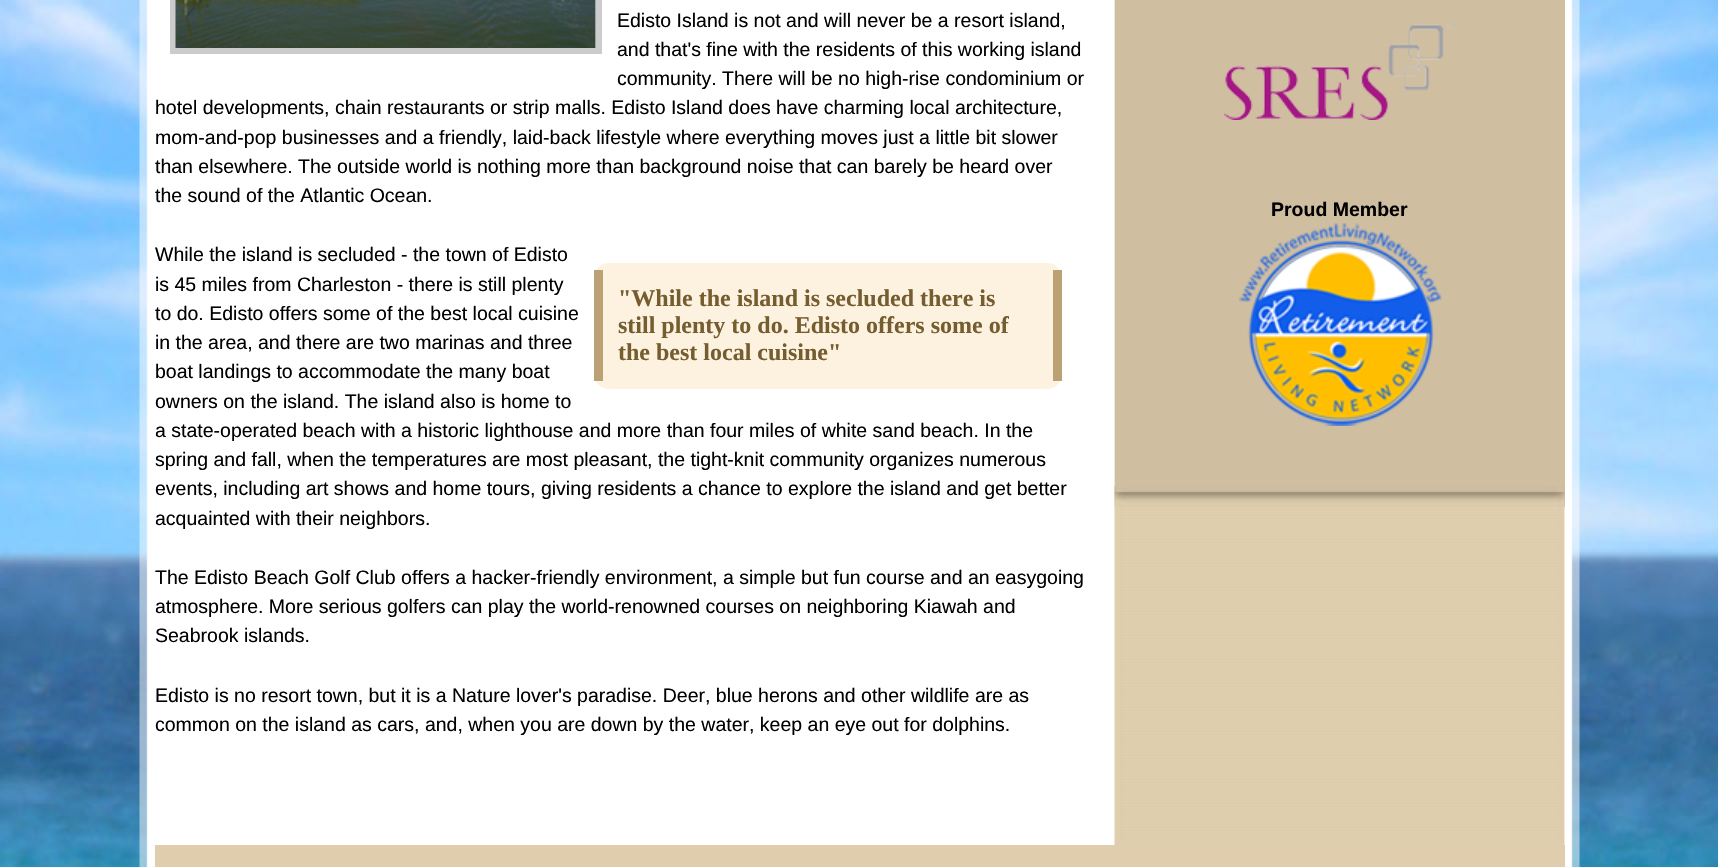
void draw(SkCanvas* canvas) {
  SkPaint paint;
  paint.setAntiAlias(true);
  auto face = [&](const char* family, int weight, float size, bool italic = false) {
    SkFontStyle style(weight, SkFontStyle::kNormal_Width,
      italic ? SkFontStyle::kItalic_Slant : SkFontStyle::kUpright_Slant);
    SkFont result(fontMgr->matchFamilyStyle(family, style), size);
    result.setSubpixel(true);
    return result;
  };
  auto paste = [&](const char* path, float x, float y, float w, float h) {
    auto image = SkImages::DeferredFromEncodedData(SkData::MakeFromFileName(path));
    canvas->drawImageRect(image, SkRect::MakeXYWH(x, y, w, h), SkSamplingOptions());
  };
  canvas->clear(0xffffffff);
  paste("img/1.png", 0, 0, 1718, 867);
  paste("img/2.png", 139, 0, 1441, 867);
  paint.setStroke(true);
  paint.setStrokeWidth(6);
  paint.setColor(0xffcccccc);
  canvas->drawRect(SkRect::MakeXYWH(173, -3, 426, 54), paint);
  paste("img/3.png", 175, 0, 421, 48);
  paint.setStroke(false);
  paint.setColor(0xfffcf2df);
  canvas->drawRoundRect(SkRect::MakeXYWH(594, 263, 468, 126), 15, 15, paint);
  {
    const struct { float x, y, w, h; SkColor color; } items[] = {
      {1053, 270, 9, 111, 0xffbba173},
      {594, 270, 9, 111, 0xffbba173},
      {1115, 0, 450, 507, 0xffcfbea0},
    };
    for (auto [x, y, w, h, color] : items) {
      paint.setColor(color);
      canvas->drawRect(SkRect::MakeXYWH(x, y, w, h), paint);
    }
  }
  paste("img/4.png", 1224, 22, 233, 98);
  paste("img/5.png", 1239, 223, 203, 203);
  paste("img/6.png", 1114, 486, 451, 21);
  paint.setColor(0xffdfcdad);
  canvas->drawRect(SkRect::MakeXYWH(155, 845, 1410, 22), paint);
  auto f0 = face("Liberation Sans", 400, 19.5f);
  paint.setColor(0xff000000);
  {
    const struct { const char* s; float x, y; } items[] = {
      {"Edisto Island is not and will never be a resort island,", 617, 27},
      {"and that's fine with the residents of this working island", 617, 56},
      {"community. There will be no high-rise condominium or", 617, 85},
      {"hotel developments, chain restaurants or strip malls. Edisto Island does have charming local architecture,", 155, 114},
      {"mom-and-pop businesses and a friendly, laid-back lifestyle where everything moves just a little bit slower", 155, 144},
      {"than elsewhere. The outside world is nothing more than background noise that can barely be heard over", 155, 173},
      {"the sound of the Atlantic Ocean.", 155, 202},
      {"While the island is secluded - the town of Edisto", 155, 261},
      {"is 45 miles from Charleston - there is still plenty", 155, 291},
      {"to do. Edisto offers some of the best local cuisine", 155, 320},
      {"in the area, and there are two marinas and three", 155, 349},
      {"boat landings to accommodate the many boat", 155, 378},
      {"owners on the island. The island also is home to", 155, 408},
      {"a state-operated beach with a historic lighthouse and more than four miles of white sand beach. In the", 155, 437},
      {"spring and fall, when the temperatures are most pleasant, the tight-knit community organizes numerous", 155, 466},
      {"events, including art shows and home tours, giving residents a chance to explore the island and get better", 155, 495},
      {"acquainted with their neighbors.", 155, 525},
    };
    for (auto [s, x, y] : items) {
      canvas->drawString(s, x, y, f0, paint);
    }
  }
  auto f1 = face("Liberation Serif", 700, 24);
  paint.setColor(0xff765d30);
  {
    const struct { const char* s; float x, y; } items[] = {
      {"\"While the island is secluded there is", 618, 306},
      {"still plenty to do. Edisto offers some of", 618, 333},
      {"the best local cuisine\"", 618, 360},
    };
    for (auto [s, x, y] : items) {
      canvas->drawString(s, x, y, f1, paint);
    }
  }
  paint.setColor(0xff000000);
  {
    const struct { const char* s; float x, y; } items[] = {
      {"The Edisto Beach Golf Club offers a hacker-friendly environment, a simple but fun course and an easygoing", 155, 584},
      {"atmosphere. More serious golfers can play the world-renowned courses on neighboring Kiawah and", 155, 613},
      {"Seabrook islands.", 155, 642},
      {"Edisto is no resort town, but it is a Nature lover's paradise. Deer, blue herons and other wildlife are as", 155, 702},
      {"common on the island as cars, and, when you are down by the water, keep an eye out for dolphins.", 155, 731},
    };
    for (auto [s, x, y] : items) {
      canvas->drawString(s, x, y, f0, paint);
    }
  }
  auto f2 = face("Liberation Sans", 700, 19.5f);
  canvas->drawString("Proud Member", 1271, 216, f2, paint);
}
